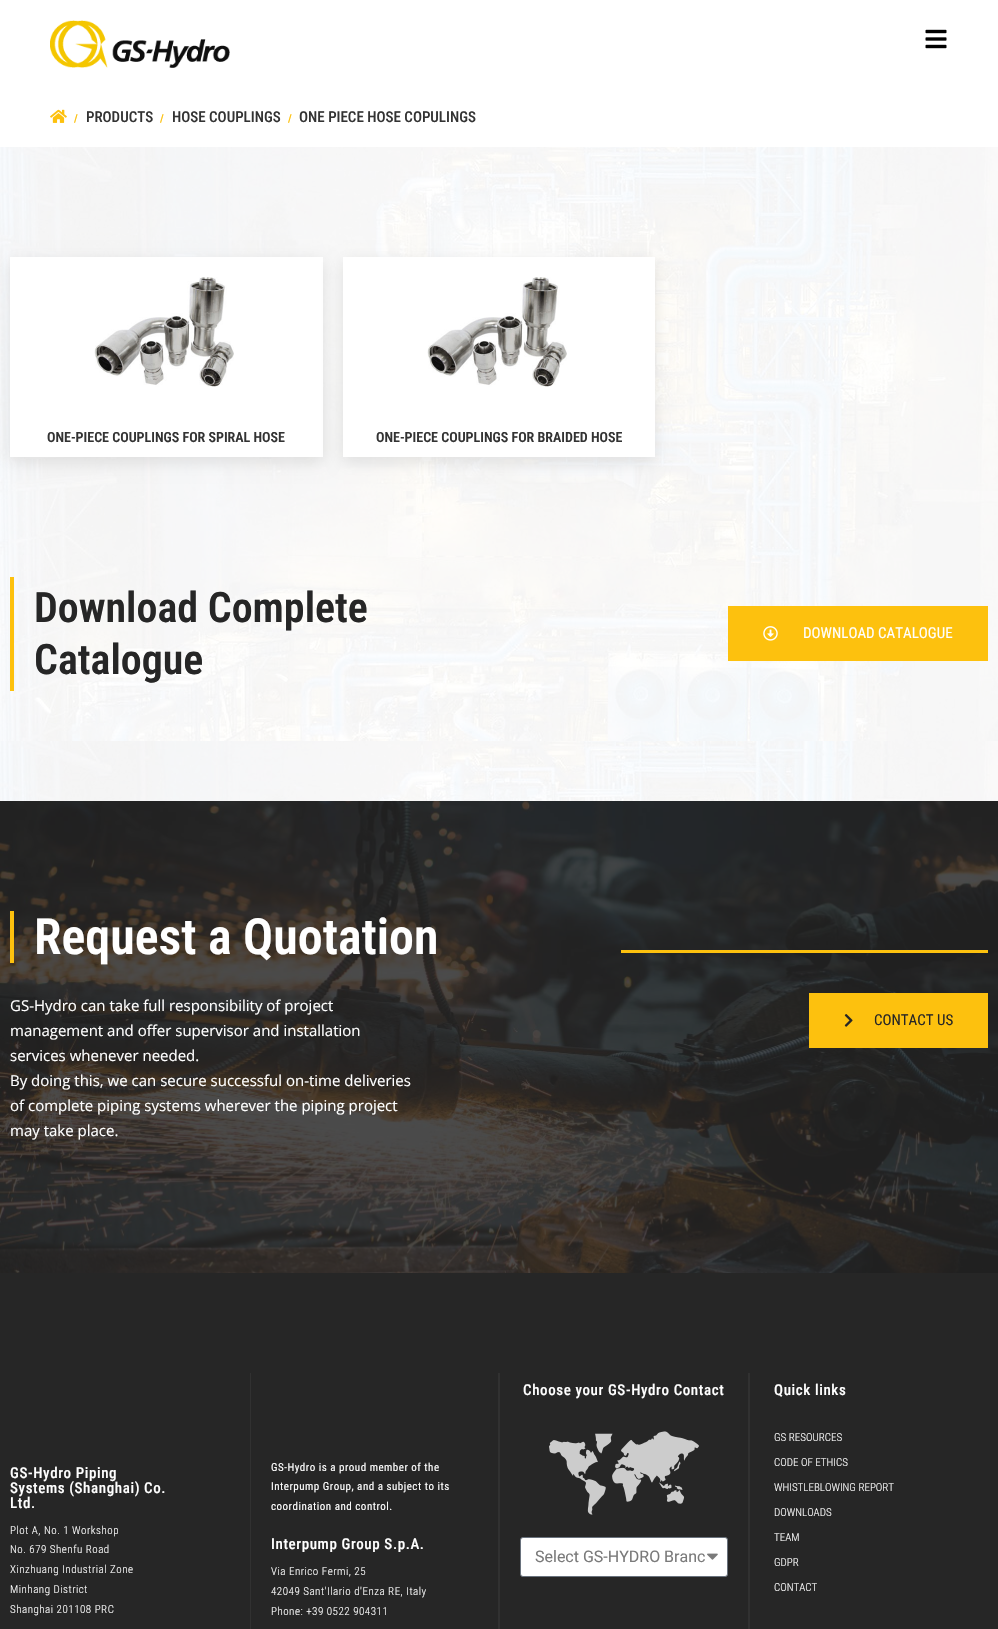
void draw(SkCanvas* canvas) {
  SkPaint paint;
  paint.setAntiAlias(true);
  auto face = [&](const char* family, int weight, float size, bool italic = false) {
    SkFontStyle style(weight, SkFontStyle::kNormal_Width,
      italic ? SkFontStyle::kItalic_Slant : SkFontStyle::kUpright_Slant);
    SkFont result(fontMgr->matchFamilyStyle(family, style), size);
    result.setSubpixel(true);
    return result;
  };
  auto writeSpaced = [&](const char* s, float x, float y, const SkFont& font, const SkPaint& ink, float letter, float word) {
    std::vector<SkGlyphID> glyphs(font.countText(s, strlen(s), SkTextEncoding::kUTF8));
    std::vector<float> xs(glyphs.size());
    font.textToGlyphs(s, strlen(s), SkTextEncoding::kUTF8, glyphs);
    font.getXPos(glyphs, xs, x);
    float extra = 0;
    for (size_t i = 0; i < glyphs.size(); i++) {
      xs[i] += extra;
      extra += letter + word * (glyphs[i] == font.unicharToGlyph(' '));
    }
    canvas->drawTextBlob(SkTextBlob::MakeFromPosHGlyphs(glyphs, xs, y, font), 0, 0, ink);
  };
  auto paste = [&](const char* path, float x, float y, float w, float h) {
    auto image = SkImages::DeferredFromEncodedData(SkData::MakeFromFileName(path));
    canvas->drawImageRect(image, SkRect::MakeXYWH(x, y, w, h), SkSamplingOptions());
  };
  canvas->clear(0xffffffff);
  paste("img/1.png", 50, 20, 180, 48);
  paste("img/2.png", 925, 29, 22, 20);
  paste("img/3.png", 50, 109, 17, 14);
  paste("img/4.png", 0, 147, 998, 654);
  paint.setColor(0x1a000000);
  paint.setMaskFilter(SkMaskFilter::MakeBlur(kNormal_SkBlurStyle, 7.5f));
  canvas->drawRect(SkRect::MakeXYWH(10, 262, 313, 200), paint);
  paint.setMaskFilter(nullptr);
  paint.setColor(0xffffffff);
  canvas->drawRect(SkRect::MakeXYWH(10, 257, 313, 200), paint);
  paste("img/5.png", 94, 277, 140, 110);
  paint.setColor(0x1a000000);
  paint.setMaskFilter(SkMaskFilter::MakeBlur(kNormal_SkBlurStyle, 7.5f));
  canvas->drawRect(SkRect::MakeXYWH(343, 262, 312, 200), paint);
  paint.setMaskFilter(nullptr);
  paint.setColor(0xffffffff);
  canvas->drawRect(SkRect::MakeXYWH(343, 257, 312, 200), paint);
  paste("img/5.png", 427, 277, 140, 110);
  paint.setColor(0xfffdc10e);
  canvas->drawRect(SkRect::MakeXYWH(10, 577, 4, 114), paint);
  canvas->drawRect(SkRect::MakeXYWH(728, 606, 260, 55), paint);
  paste("img/6.png", 763, 626, 15, 15);
  paste("img/7.png", 0, 801, 998, 472);
  {
    const struct { float x, y, w, h; SkColor color; } items[] = {
      {10, 911, 4, 52, 0xfffdc10e},
      {621, 950, 367, 3, 0xfffdc10e},
      {809, 993, 179, 55, 0xfffdc10e},
    };
    for (auto [x, y, w, h, color] : items) {
      paint.setColor(color);
      canvas->drawRect(SkRect::MakeXYWH(x, y, w, h), paint);
    }
  }
  paste("img/8.png", 844, 1014, 9, 13);
  {
    const struct { float x, y, w, h; SkColor color; } items[] = {
      {0, 1273, 998, 356, 0xff262626},
      {498, 1373, 2, 256, 0xff313131},
      {250, 1373, 1, 256, 0xff313131},
      {748, 1373, 2, 256, 0xff313131},
    };
    for (auto [x, y, w, h, color] : items) {
      paint.setColor(color);
      canvas->drawRect(SkRect::MakeXYWH(x, y, w, h), paint);
    }
  }
  paste("img/9.png", 549, 1431, 150, 84);
  paint.setColor(0xffffffff);
  canvas->drawRoundRect(SkRect::MakeXYWH(520.5f, 1537.5f, 207, 39), 2.5f, 2.5f, paint);
  paint.setStroke(true);
  paint.setStrokeWidth(1);
  paint.setColor(0xff69727d);
  canvas->drawRoundRect(SkRect::MakeXYWH(520.5f, 1537.5f, 207, 39), 2.5f, 2.5f, paint);
  paste("img/10.png", 707, 1553, 11, 7);
  auto f0 = face("Roboto Condensed", 600, 11);
  paint.setStroke(false);
  paint.setColor(0xfffdc10e);
  canvas->drawString("/", 74, 122, f0, paint);
  auto f1 = face("Roboto Condensed", 500, 15);
  paint.setColor(0xff333333);
  canvas->drawString("PRODUCTS", 86, 122, f1, paint);
  paint.setColor(0xfffdc10e);
  canvas->drawString("/", 160, 122, f0, paint);
  paint.setColor(0xff333333);
  canvas->drawString("HOSE COUPLINGS", 172, 122, f1, paint);
  paint.setColor(0xfffdc10e);
  canvas->drawString("/", 288, 122, f0, paint);
  paint.setColor(0xff333333);
  canvas->drawString("ONE PIECE HOSE COPULINGS", 299, 122, f1, paint);
  auto f2 = face("Roboto Condensed", 600, 14);
  canvas->drawString("ONE-PIECE COUPLINGS FOR SPIRAL HOSE", 47, 442, f2, paint);
  canvas->drawString("ONE-PIECE COUPLINGS FOR BRAIDED HOSE", 376, 442, f2, paint);
  auto f3 = face("Roboto Condensed", 600, 42);
  paint.setColor(0xff262626);
  canvas->drawString("Download Complete", 34, 622, f3, paint);
  canvas->drawString("Catalogue", 34, 674, f3, paint);
  auto f4 = face("Roboto Condensed", 400, 15);
  paint.setColor(0xffffffff);
  canvas->drawString("DOWNLOAD CATALOGUE", 803, 638, f4, paint);
  auto f5 = face("Roboto Condensed", 600, 50);
  canvas->drawString("Request a Quotation", 34, 954, f5, paint);
  auto f6 = face("Open Sans", 400, 15);
  {
    const struct { const char* s; float x, y; } items[] = {
      {"GS-Hydro can take full responsibility of project", 10, 1011},
      {"management and offer supervisor and installation", 10, 1036},
      {"services whenever needed.", 10, 1061},
      {"By doing this, we can secure successful on-time deliveries", 10, 1086},
      {"of complete piping systems wherever the piping project", 10, 1111},
      {"may take place.", 10, 1136},
    };
    for (auto [s, x, y] : items) {
      canvas->drawString(s, x, y, f6, paint);
    }
  }
  paint.setColor(0xff262626);
  canvas->drawString("CONTACT US", 874, 1025, f4, paint);
  paint.setColor(0xffffffff);
  {
    const struct { const char* s; float x, y; } items[] = {
      {"GS-Hydro Piping", 10, 1478},
      {"Systems (Shanghai) Co.", 10, 1493},
      {"Ltd.", 10, 1508},
    };
    for (auto [s, x, y] : items) {
      writeSpaced(s, x, y, f1, paint, 0.6f, 0);
    }
  }
  auto f7 = face("Roboto Condensed", 300, 11);
  {
    const struct { const char* s; float x, y; } items[] = {
      {"Plot A, No. 1 Workshop", 10, 1534},
      {"No. 679 Shenfu Road", 10, 1553},
      {"Xinzhuang Industrial Zone", 10, 1573},
      {"Minhang District", 10, 1593},
      {"Shanghai 201108 PRC", 10, 1613},
    };
    for (auto [s, x, y] : items) {
      writeSpaced(s, x, y, f7, paint, 0.5f, 0);
    }
  }
  auto f8 = face("Roboto Condensed", 400, 11);
  {
    const struct { const char* s; float x, y; } items[] = {
      {"GS-Hydro is a proud member of the", 271, 1471},
      {"Interpump Group, and a subject to its", 271, 1490},
      {"coordination and control.", 271, 1510},
    };
    for (auto [s, x, y] : items) {
      writeSpaced(s, x, y, f8, paint, 0.5f, 0);
    }
  }
  writeSpaced("Interpump Group S.p.A.", 271, 1549, f1, paint, 0.6f, 0);
  {
    const struct { const char* s; float x, y; } items[] = {
      {"Via Enrico Fermi, 25", 271, 1575},
      {"42049 Sant'Ilario d'Enza RE, Italy", 271, 1595},
      {"Phone: +39 0522 904311", 271, 1615},
    };
    for (auto [s, x, y] : items) {
      writeSpaced(s, x, y, f7, paint, 0.5f, 0);
    }
  }
  writeSpaced("Choose your GS-Hydro Contact", 523, 1395, f1, paint, 0.6f, 0);
  auto f9 = face("Roboto", 400, 16);
  paint.setColor(0xff7a7a7a);
  canvas->drawString("Select GS-HYDRO Branc", 535, 1562, f9, paint);
  paint.setColor(0xffffffff);
  writeSpaced("Quick links", 774, 1395, f1, paint, 0.6f, 0);
  {
    const struct { const char* s; float x, y; } items[] = {
      {"GS RESOURCES", 774, 1441},
      {"CODE OF ETHICS", 774, 1466},
      {"WHISTLEBLOWING REPORT", 774, 1491},
      {"DOWNLOADS", 774, 1516},
      {"TEAM", 774, 1541},
      {"GDPR", 774, 1566},
      {"CONTACT", 774, 1591},
    };
    for (auto [s, x, y] : items) {
      canvas->drawString(s, x, y, f7, paint);
    }
  }
}
